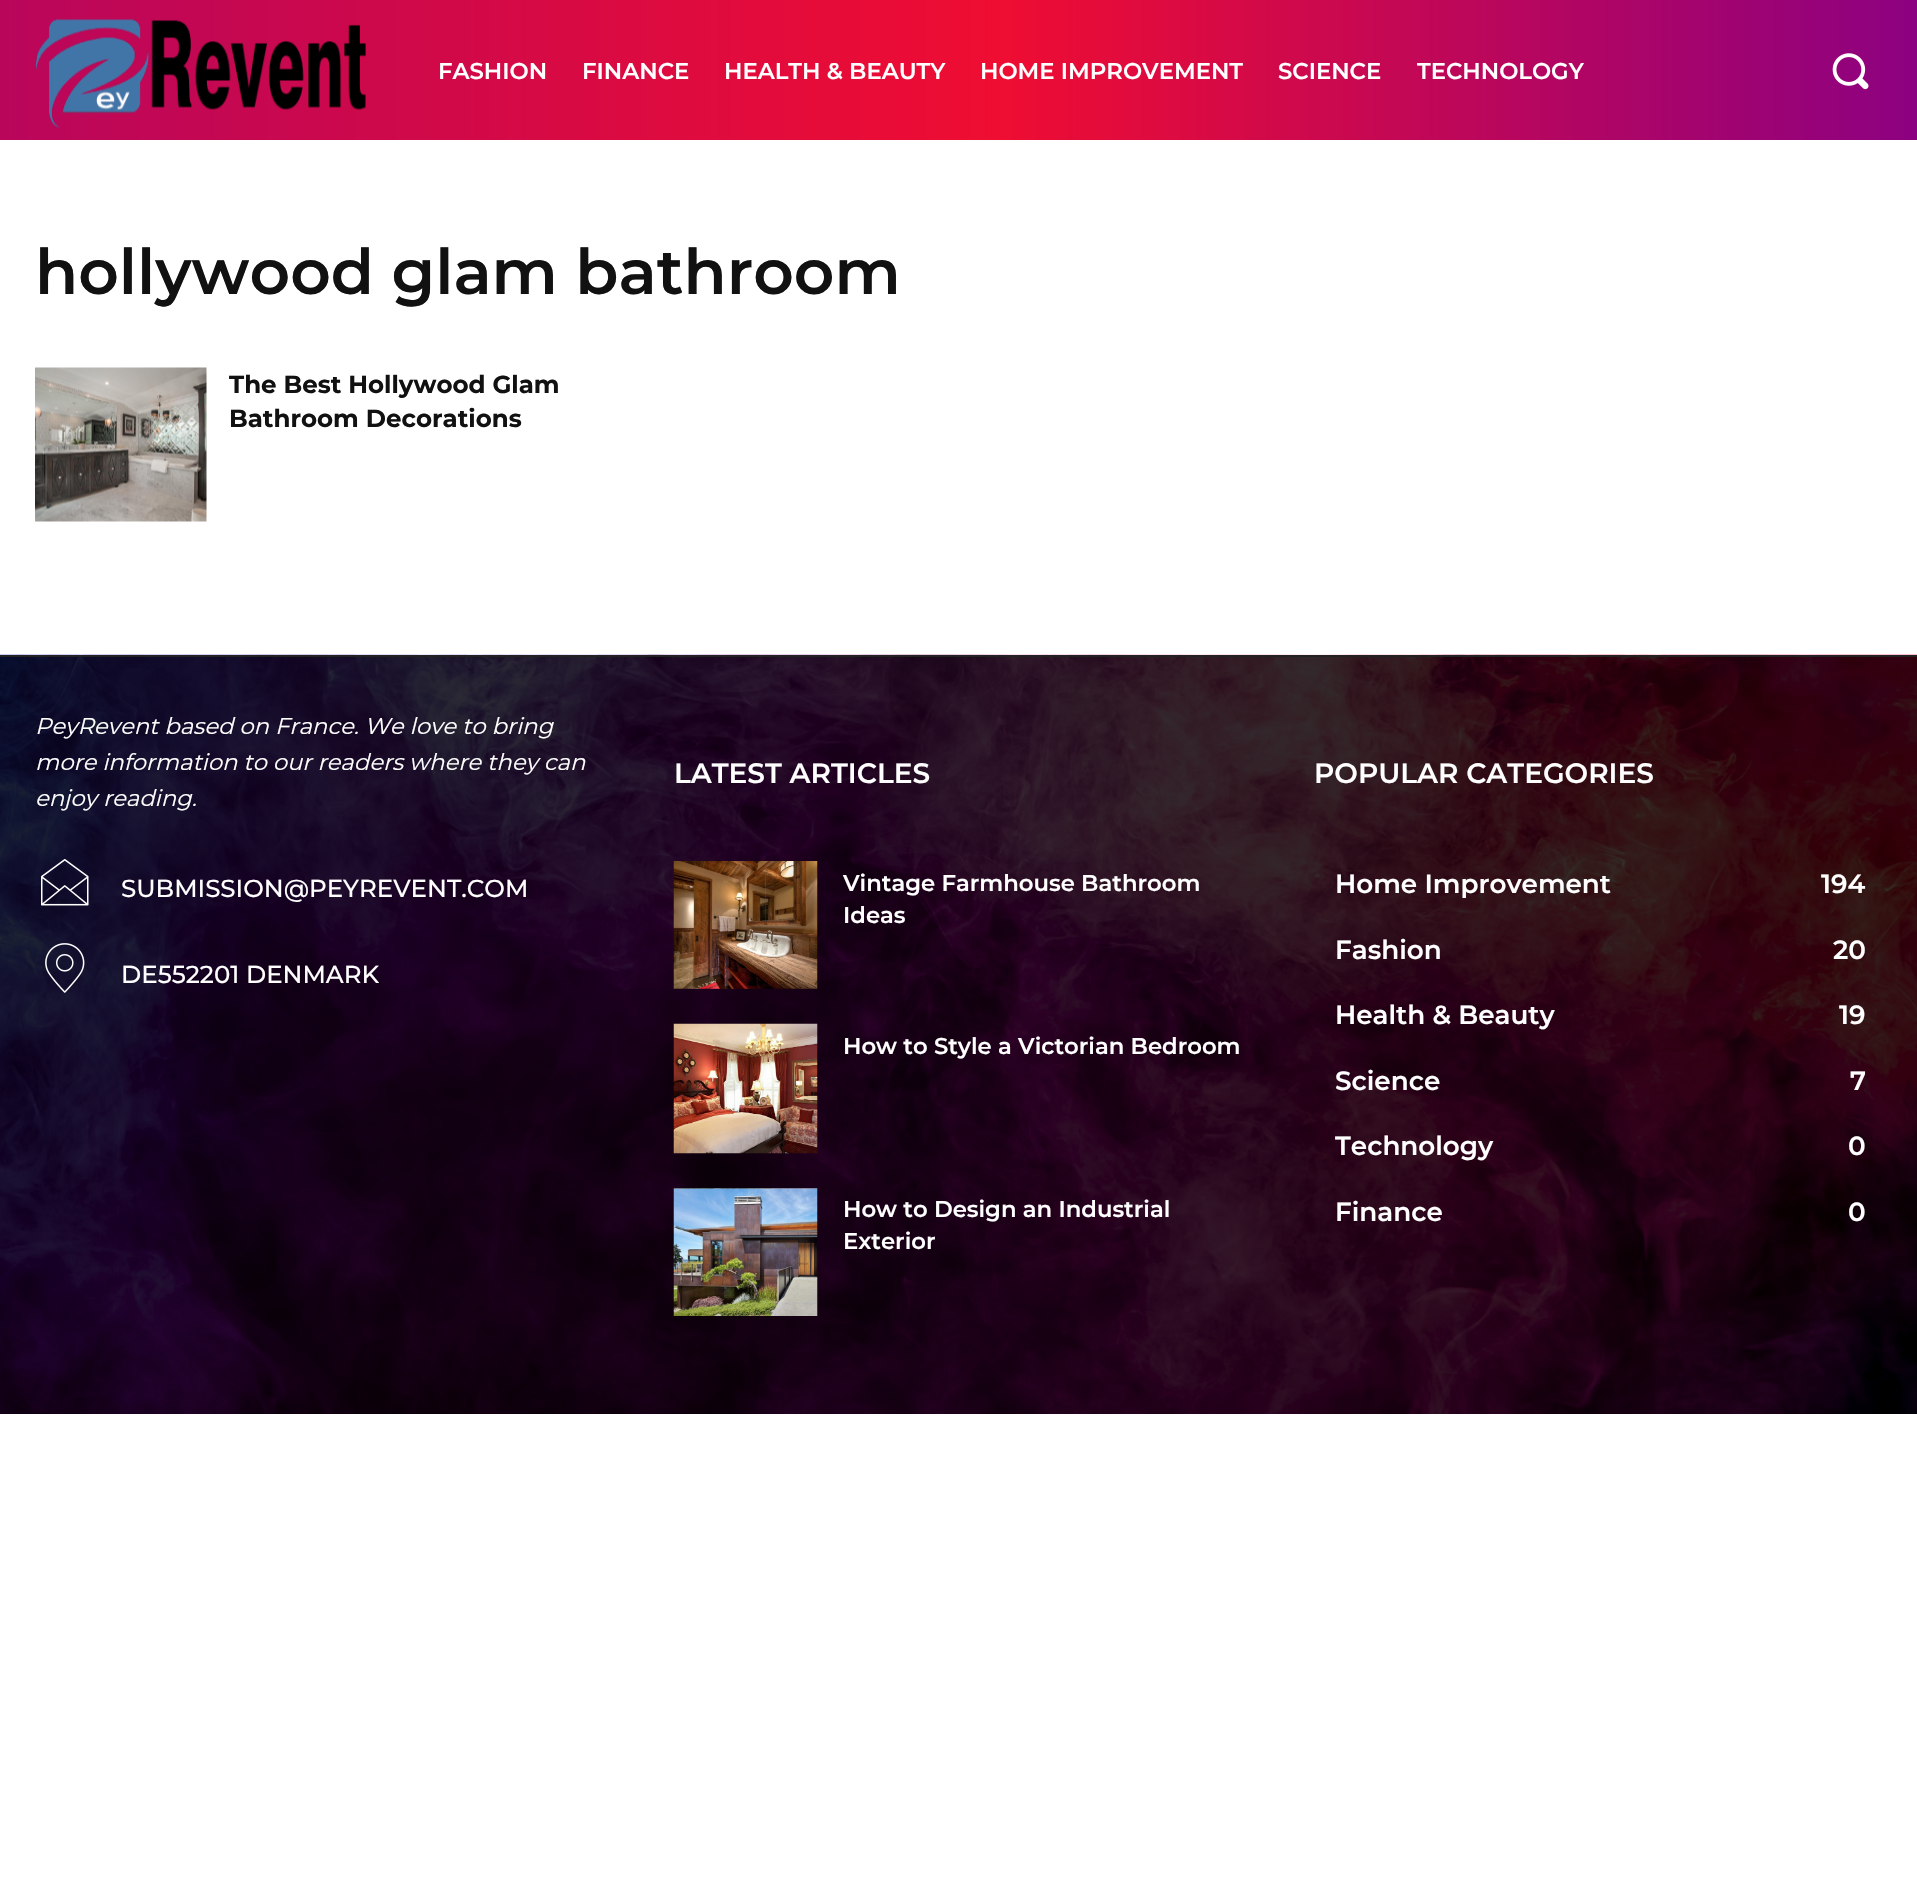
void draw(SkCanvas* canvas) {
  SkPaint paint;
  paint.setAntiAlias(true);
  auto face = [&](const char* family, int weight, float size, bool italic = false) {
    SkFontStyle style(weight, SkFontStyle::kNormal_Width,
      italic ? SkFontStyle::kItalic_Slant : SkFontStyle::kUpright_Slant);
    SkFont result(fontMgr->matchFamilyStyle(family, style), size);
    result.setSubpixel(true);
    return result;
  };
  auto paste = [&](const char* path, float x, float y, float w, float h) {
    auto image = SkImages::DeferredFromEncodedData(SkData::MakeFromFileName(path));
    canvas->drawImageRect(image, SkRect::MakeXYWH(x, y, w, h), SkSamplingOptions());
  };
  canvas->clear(0xffffffff);
  {
    const SkColor colors[] = {0xff8c0181, 0xffef0d32, 0xffb9065b};
    const float stops[] = {0, 0.48f, 1};
    const SkPoint ends[] = {{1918, 70}, {0, 70}};
    paint.setShader(SkGradientShader::MakeLinear(ends, colors, stops, 3, SkTileMode::kClamp));
    paint.setAlpha(255);
  }
  canvas->drawRect(SkRect::MakeXYWH(0, 0, 1917, 140), paint);
  paste("img/1.png", 36, 19, 330, 110);
  paste("img/2.png", 1832, 53, 37, 37);
  paste("img/3.png", 35, 367, 172, 155);
  paste("img/4.png", 0, 654, 1917, 760);
  paint.setShader(nullptr);
  paint.setColor(0xff222222);
  canvas->drawRect(SkRect::MakeXYWH(0, 655, 1917, 2), paint);
  paste("img/5.png", 41, 859, 48, 47);
  paste("img/6.png", 45, 943, 40, 50);
  paste("img/7.png", 673, 861, 145, 128);
  paste("img/8.png", 673, 1023, 145, 131);
  paste("img/9.png", 673, 1188, 145, 128);
  auto f0 = face("Montserrat", 600, 22.75f);
  paint.setColor(0xffffffff);
  {
    const struct { const char* s; float x, y; } items[] = {
      {"FASHION", 438, 79},
      {"FINANCE", 582, 79},
      {"HEALTH & BEAUTY", 724, 79},
      {"HOME IMPROVEMENT", 980, 79},
      {"SCIENCE", 1278, 79},
      {"TECHNOLOGY", 1417, 79},
    };
    for (auto [s, x, y] : items) {
      canvas->drawString(s, x, y, f0, paint);
    }
  }
  auto f1 = face("Montserrat", 600, 63);
  paint.setColor(0xff111111);
  canvas->drawString("hollywood glam bathroom", 35, 294, f1, paint);
  auto f2 = face("Montserrat", 700, 24.5f);
  canvas->drawString("The Best Hollywood Glam", 229, 393, f2, paint);
  canvas->drawString("Bathroom Decorations", 229, 427, f2, paint);
  auto f3 = face("Montserrat", 400, 22.75f, true);
  paint.setColor(0xffffffff);
  {
    const struct { const char* s; float x, y; } items[] = {
      {"PeyRevent based on France. We love to bring", 35, 734},
      {"more information to our readers where they can", 35, 770},
      {"enjoy reading.", 35, 806},
    };
    for (auto [s, x, y] : items) {
      canvas->drawString(s, x, y, f3, paint);
    }
  }
  auto f4 = face("Montserrat", 500, 24.5f);
  canvas->drawString("SUBMISSION@PEYREVENT.COM", 121, 897, f4, paint);
  canvas->drawString("DE552201 DENMARK", 121, 983, f4, paint);
  auto f5 = face("Montserrat", 600, 28);
  canvas->drawString("LATEST ARTICLES", 674, 783, f5, paint);
  {
    const struct { const char* s; float x, y; } items[] = {
      {"Vintage Farmhouse Bathroom", 843, 891},
      {"Ideas", 843, 923},
      {"How to Style a Victorian Bedroom", 843, 1054},
      {"How to Design an Industrial", 843, 1217},
      {"Exterior", 843, 1249},
    };
    for (auto [s, x, y] : items) {
      canvas->drawString(s, x, y, f0, paint);
    }
  }
  canvas->drawString("POPULAR CATEGORIES", 1314, 783, f5, paint);
  auto f6 = face("Montserrat", 600, 26.25f);
  {
    const struct { const char* s; float x, y; } items[] = {
      {"Home Improvement", 1335, 893},
      {"194", 1821, 893},
      {"Fashion", 1335, 959},
      {"20", 1833, 959},
      {"Health & Beauty", 1335, 1024},
      {"19", 1839, 1024},
      {"Science", 1335, 1090},
      {"7", 1850, 1090},
      {"Technology", 1335, 1155},
      {"0", 1848, 1155},
      {"Finance", 1335, 1221},
      {"0", 1848, 1221},
    };
    for (auto [s, x, y] : items) {
      canvas->drawString(s, x, y, f6, paint);
    }
  }
}
